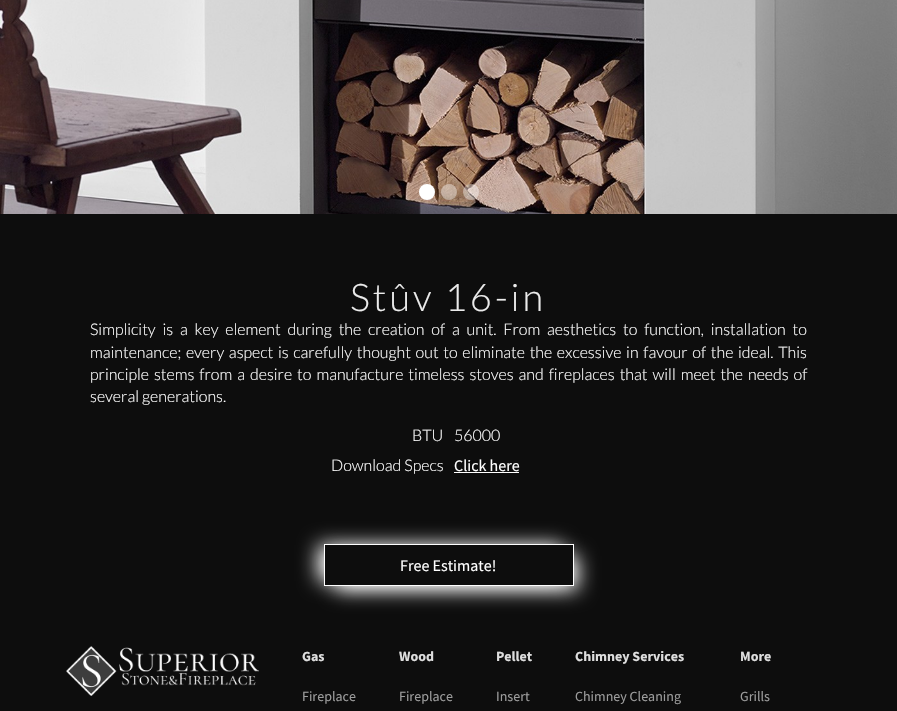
void draw(SkCanvas* canvas) {
  SkPaint paint;
  paint.setAntiAlias(true);
  auto face = [&](const char* family, int weight, float size, bool italic = false) {
    SkFontStyle style(weight, SkFontStyle::kNormal_Width,
      italic ? SkFontStyle::kItalic_Slant : SkFontStyle::kUpright_Slant);
    SkFont result(fontMgr->matchFamilyStyle(family, style), size);
    result.setSubpixel(true);
    return result;
  };
  auto writeSpaced = [&](const char* s, float x, float y, const SkFont& font, const SkPaint& ink, float letter, float word) {
    std::vector<SkGlyphID> glyphs(font.countText(s, strlen(s), SkTextEncoding::kUTF8));
    std::vector<float> xs(glyphs.size());
    font.textToGlyphs(s, strlen(s), SkTextEncoding::kUTF8, glyphs);
    font.getXPos(glyphs, xs, x);
    float extra = 0;
    for (size_t i = 0; i < glyphs.size(); i++) {
      xs[i] += extra;
      extra += letter + word * (glyphs[i] == font.unicharToGlyph(' '));
    }
    canvas->drawTextBlob(SkTextBlob::MakeFromPosHGlyphs(glyphs, xs, y, font), 0, 0, ink);
  };
  auto paste = [&](const char* path, float x, float y, float w, float h) {
    auto image = SkImages::DeferredFromEncodedData(SkData::MakeFromFileName(path));
    canvas->drawImageRect(image, SkRect::MakeXYWH(x, y, w, h), SkSamplingOptions());
  };
  auto shape = [&](const char* data, bool evenOdd = false) {
    SkPath result = *SkParsePath::FromSVGString(data);
    if (evenOdd) result.setFillType(SkPathFillType::kEvenOdd);
    return result;
  };
  canvas->clear(0xff0d0d0d);
  paste("img/1.png", 0, 0, 897, 214);
  paint.setColor(0xffffffff);
  canvas->drawCircle(427, 192, 8, paint);
  paint.setColor(0x66ffffff);
  canvas->drawCircle(449, 192, 8, paint);
  canvas->drawCircle(471, 192, 8, paint);
  paint.setColor(0xffffffff);
  canvas->drawRect(SkRect::MakeXYWH(454, 472, 65, 1), paint);
  canvas->save();
  canvas->clipPath(shape("M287 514H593V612H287ZM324 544H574V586H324Z", true), true);
  paint.setMaskFilter(SkMaskFilter::MakeBlur(kNormal_SkBlurStyle, 10));
  canvas->drawRect(SkRect::MakeXYWH(318, 545, 244, 36), paint);
  paint.setMaskFilter(nullptr);
  canvas->restore();
  canvas->save();
  canvas->clipPath(shape("M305 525H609V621H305ZM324 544H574V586H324Z", true), true);
  paint.setMaskFilter(SkMaskFilter::MakeBlur(kNormal_SkBlurStyle, 10));
  canvas->drawRect(SkRect::MakeXYWH(336, 556, 242, 34), paint);
  paint.setMaskFilter(nullptr);
  canvas->restore();
  paint.setStroke(true);
  paint.setStrokeWidth(1);
  canvas->drawRect(SkRect::MakeXYWH(324.5f, 544.5f, 249, 41), paint);
  paste("img/2.png", 66, 646, 193, 50);
  auto f0 = face("Lato", 300, 38);
  paint.setStroke(false);
  paint.setColor(0xffebebeb);
  writeSpaced("Stûv 16-in", 350, 311, f0, paint, 3, 0);
  auto f1 = face("Lato", 300, 16);
  paint.setColor(0xffffffff);
  writeSpaced("Simplicity is a key element during the creation of a unit. From aesthetics to function, installation to", 90, 335, f1, paint, 0, 3.75f);
  writeSpaced("maintenance; every aspect is carefully thought out to eliminate the excessive in favour of the ideal. This", 90, 358, f1, paint, 0, 1.6f);
  writeSpaced("principle stems from a desire to manufacture timeless stoves and fireplaces that will meet the needs of", 90, 380, f1, paint, 0, 1.9f);
  {
    const struct { const char* s; float x, y; } items[] = {
      {"several generations.", 90, 402},
      {"BTU", 412, 441},
      {"56000", 454, 441},
      {"Download Specs", 331, 471},
    };
    for (auto [s, x, y] : items) {
      canvas->drawString(s, x, y, f1, paint);
    }
  }
  auto f2 = face("Source Sans Pro", 400, 16);
  canvas->drawString("Click here", 454, 471, f2, paint);
  canvas->drawString("Free Estimate!", 400, 571, f2, paint);
  auto f3 = face("Source Sans Pro", 700, 14);
  paint.setColor(0xffdddddd);
  canvas->drawString("Gas", 302, 661, f3, paint);
  auto f4 = face("Source Sans Pro", 400, 14);
  paint.setColor(0xff9c9c9c);
  canvas->drawString("Fireplace", 302, 701, f4, paint);
  paint.setColor(0xffdddddd);
  canvas->drawString("Wood", 399, 661, f3, paint);
  paint.setColor(0xff9c9c9c);
  canvas->drawString("Fireplace", 399, 701, f4, paint);
  paint.setColor(0xffdddddd);
  canvas->drawString("Pellet", 496, 661, f3, paint);
  paint.setColor(0xff9c9c9c);
  canvas->drawString("Insert", 496, 701, f4, paint);
  paint.setColor(0xffdddddd);
  canvas->drawString("Chimney Services", 575, 661, f3, paint);
  paint.setColor(0xff9c9c9c);
  canvas->drawString("Chimney Cleaning", 575, 701, f4, paint);
  paint.setColor(0xffdddddd);
  canvas->drawString("More", 740, 661, f3, paint);
  paint.setColor(0xff9c9c9c);
  canvas->drawString("Grills", 740, 701, f4, paint);
}
